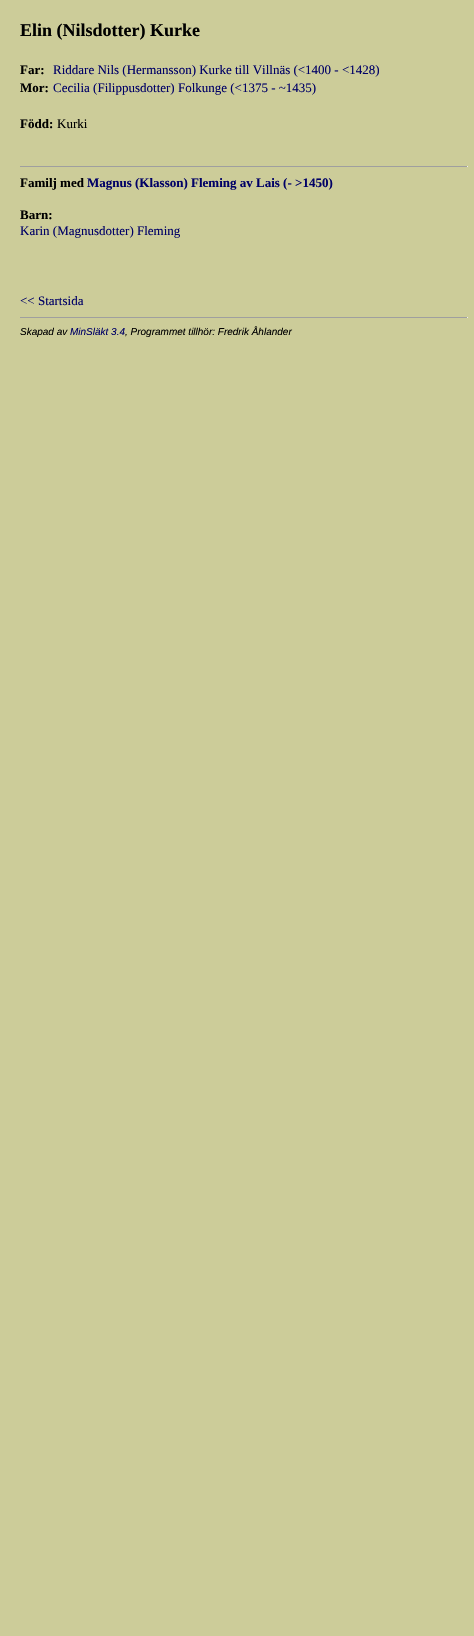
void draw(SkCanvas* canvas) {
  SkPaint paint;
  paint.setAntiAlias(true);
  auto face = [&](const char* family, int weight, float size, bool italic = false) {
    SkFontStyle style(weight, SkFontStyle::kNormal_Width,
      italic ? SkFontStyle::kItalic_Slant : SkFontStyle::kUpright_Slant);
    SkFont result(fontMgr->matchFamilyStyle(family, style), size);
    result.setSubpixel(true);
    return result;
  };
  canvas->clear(0xffcccc99);
  {
    const struct { float x, y, w, h; SkColor color; } items[] = {
      {20, 166, 448, 1, 0xff9f9f9f},
      {467, 166, 1, 1, 0xffeeeeee},
      {20, 317, 448, 1, 0xff9f9f9f},
      {467, 317, 1, 1, 0xffeeeeee},
    };
    for (auto [x, y, w, h, color] : items) {
      paint.setColor(color);
      canvas->drawRect(SkRect::MakeXYWH(x, y, w, h), paint);
    }
  }
  auto f0 = face("Liberation Serif", 700, 18);
  paint.setColor(0xff000000);
  canvas->drawString("Elin (Nilsdotter) Kurke", 20, 36, f0, paint);
  auto f1 = face("Liberation Serif", 700, 13);
  canvas->drawString("Far:", 20, 74, f1, paint);
  auto f2 = face("Liberation Serif", 400, 13);
  paint.setColor(0xff000066);
  canvas->drawString("Riddare Nils (Hermansson) Kurke till Villnäs (<1400 - <1428)", 53, 74, f2, paint);
  paint.setColor(0xff000000);
  canvas->drawString("Mor:", 20, 92, f1, paint);
  paint.setColor(0xff000066);
  canvas->drawString("Cecilia (Filippusdotter) Folkunge (<1375 - ~1435)", 53, 92, f2, paint);
  paint.setColor(0xff000000);
  canvas->drawString("Född:", 20, 128, f1, paint);
  canvas->drawString("Kurki", 57, 128, f2, paint);
  canvas->drawString("Familj med", 20, 187, f1, paint);
  paint.setColor(0xff000066);
  canvas->drawString("Magnus (Klasson) Fleming av Lais (- >1450)", 87, 187, f1, paint);
  paint.setColor(0xff000000);
  canvas->drawString("Barn:", 20, 219, f1, paint);
  paint.setColor(0xff000066);
  canvas->drawString("Karin (Magnusdotter) Fleming", 20, 235, f2, paint);
  canvas->drawString("<< Startsida", 20, 305, f2, paint);
  auto f3 = face("Liberation Sans", 400, 10, true);
  paint.setColor(0xff000000);
  canvas->drawString("Skapad av", 20, 335, f3, paint);
  paint.setColor(0xff000066);
  canvas->drawString("MinSläkt 3.4", 70, 335, f3, paint);
  paint.setColor(0xff000000);
  canvas->drawString(", Programmet tillhör: Fredrik Åhlander", 125, 335, f3, paint);
}
